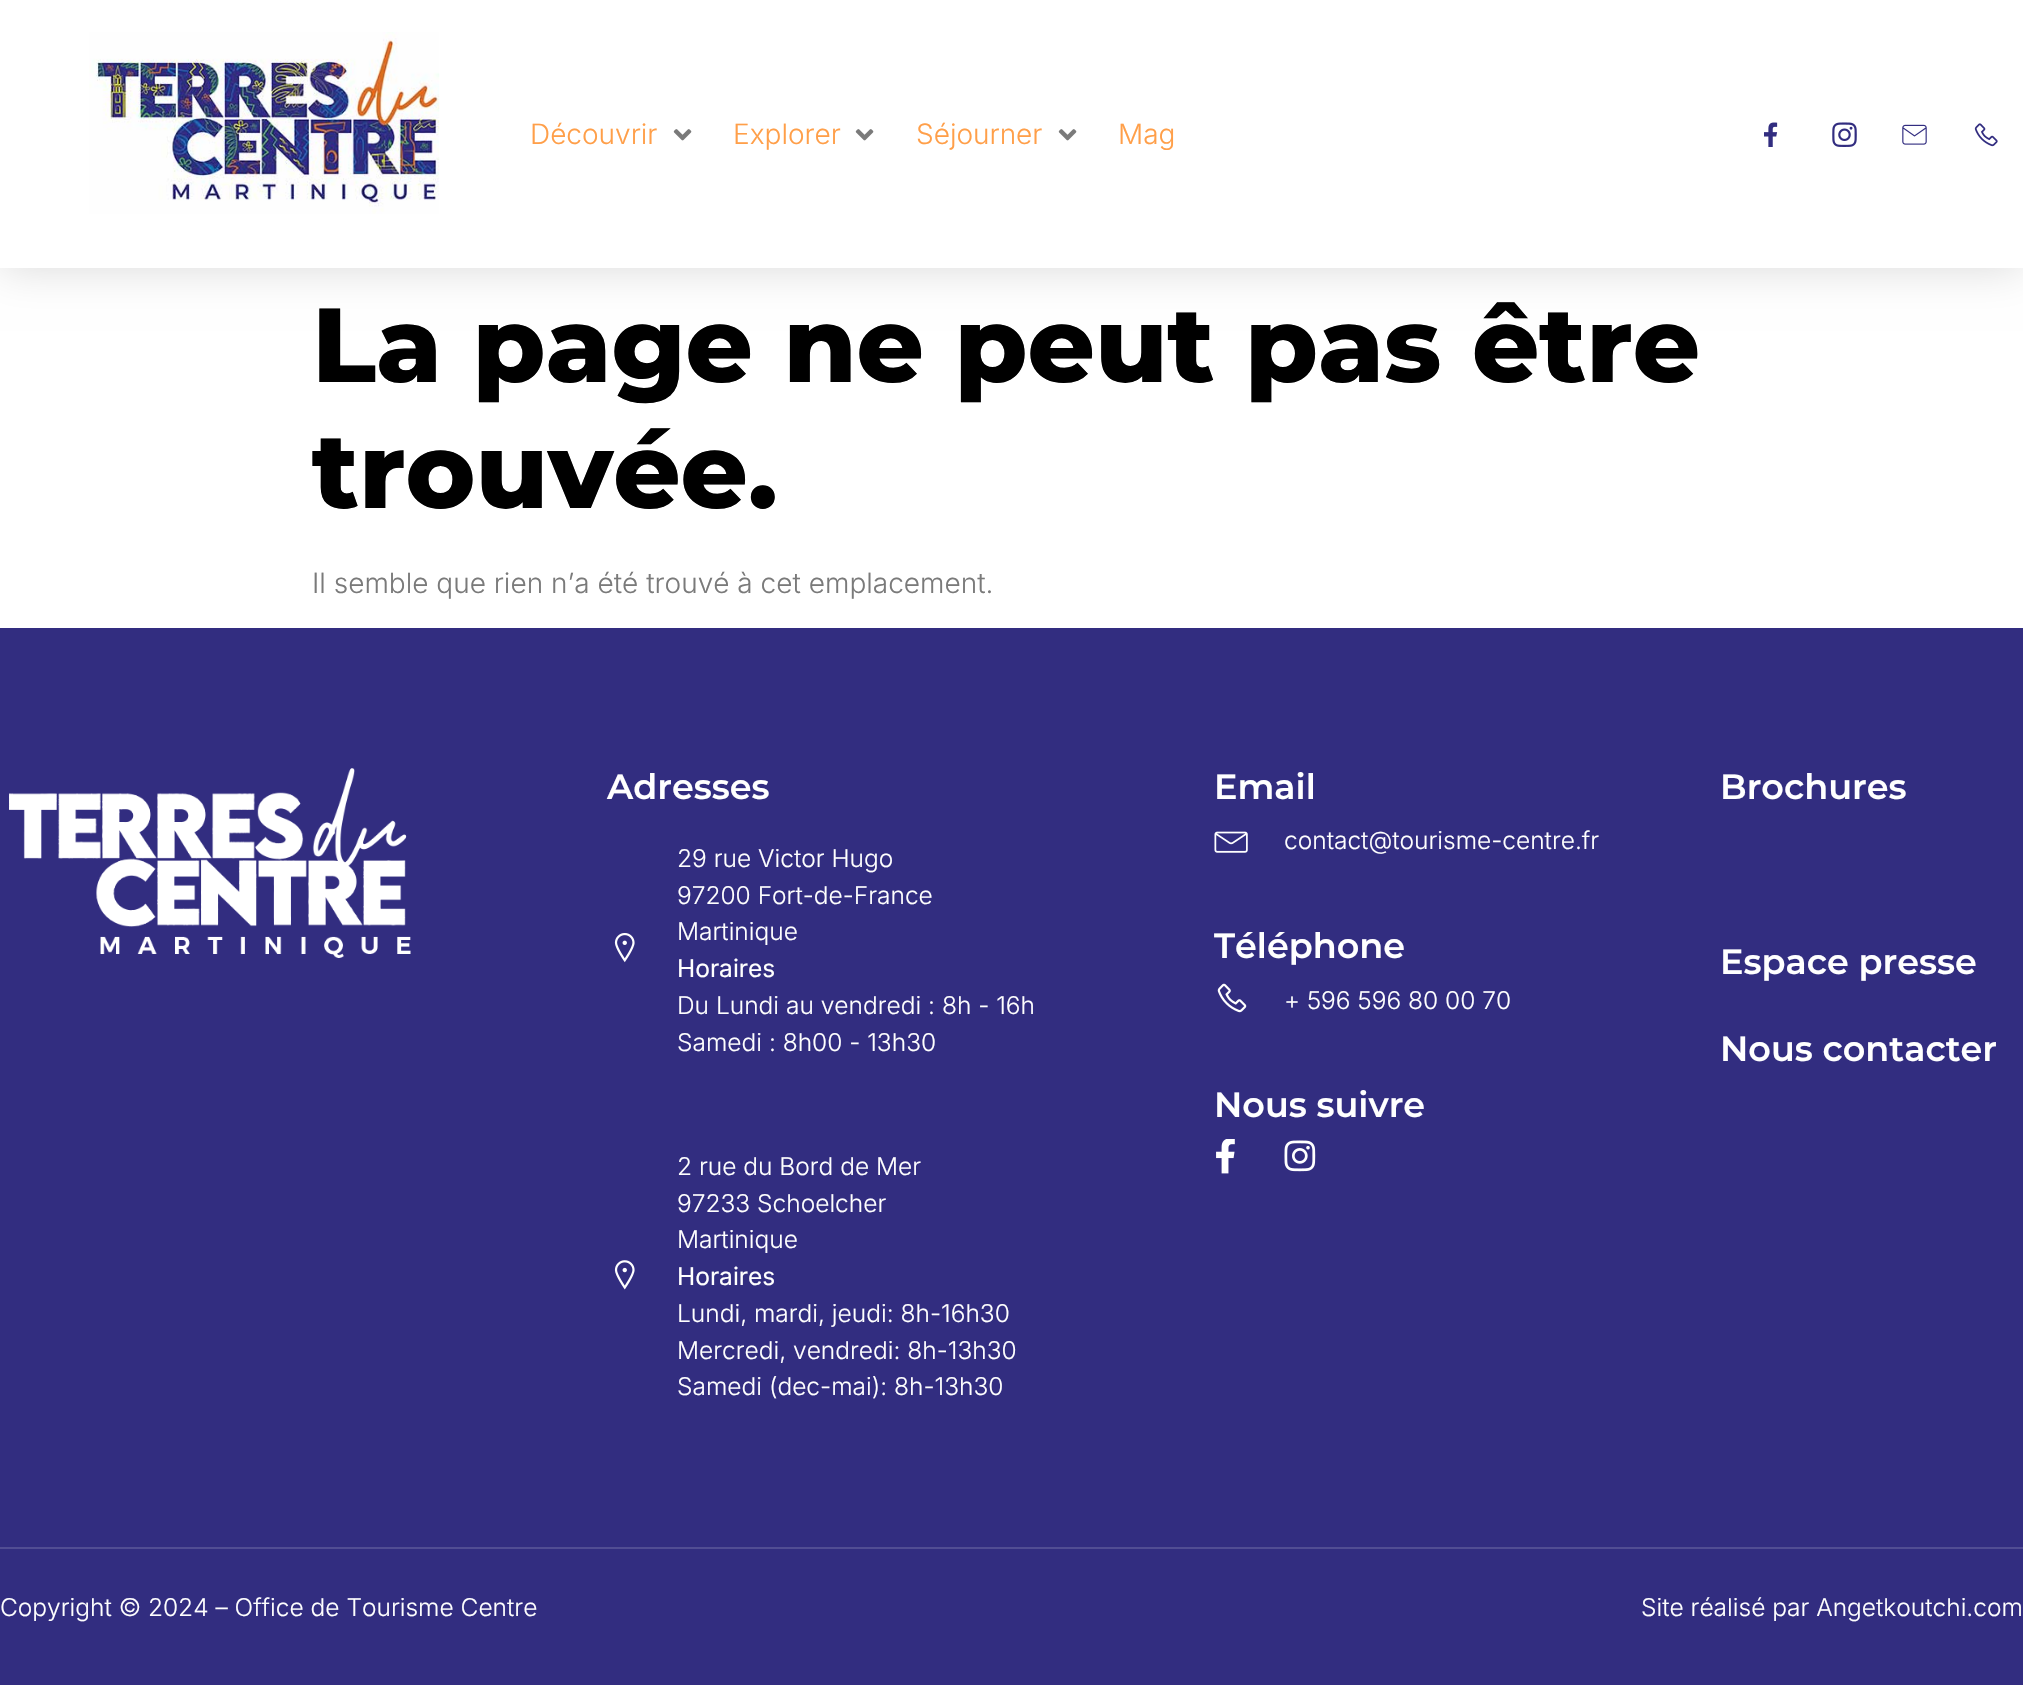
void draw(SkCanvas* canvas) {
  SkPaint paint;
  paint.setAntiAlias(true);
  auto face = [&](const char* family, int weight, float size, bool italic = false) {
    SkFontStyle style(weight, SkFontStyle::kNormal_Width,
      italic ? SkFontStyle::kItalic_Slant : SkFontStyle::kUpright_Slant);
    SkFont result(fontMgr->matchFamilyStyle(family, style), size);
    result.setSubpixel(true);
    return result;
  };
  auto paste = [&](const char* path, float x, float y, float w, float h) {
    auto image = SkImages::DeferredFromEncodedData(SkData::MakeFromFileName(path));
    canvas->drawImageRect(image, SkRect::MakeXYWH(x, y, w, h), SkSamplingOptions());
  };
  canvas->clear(0xffffffff);
  paint.setColor(0x26000000);
  paint.setMaskFilter(SkMaskFilter::MakeBlur(kNormal_SkBlurStyle, 21));
  canvas->drawRect(SkRect::MakeXYWH(0, 0, 2023, 268), paint);
  paint.setMaskFilter(nullptr);
  paint.setColor(0xffffffff);
  canvas->drawRect(SkRect::MakeXYWH(0, 0, 2023, 268), paint);
  paste("img/1.png", 89, 32, 351, 182);
  paste("img/2.png", 673, 129, 19, 12);
  paste("img/2.png", 855, 129, 19, 12);
  paste("img/2.png", 1058, 129, 19, 12);
  paste("img/3.png", 1764, 122, 14, 25);
  paste("img/4.png", 1832, 122, 25, 25);
  paste("img/5.png", 1902, 124, 25, 21);
  paste("img/6.png", 1974, 123, 24, 24);
  paint.setColor(0xff322d80);
  canvas->drawRect(SkRect::MakeXYWH(0, 628, 2023, 1057), paint);
  paste("img/7.png", 9, 768, 402, 190);
  paste("img/8.png", 614, 933, 21, 30);
  paste("img/9.png", 614, 1260, 21, 30);
  paste("img/10.png", 1214, 831, 34, 22);
  paste("img/11.png", 1217, 983, 30, 30);
  paste("img/12.png", 1216, 1139, 19, 35);
  paste("img/13.png", 1284, 1140, 32, 32);
  paint.setColor(0xff514d93);
  canvas->drawRect(SkRect::MakeXYWH(0, 1547, 2023, 2), paint);
  auto f0 = face("Inter", 300, 28);
  paint.setColor(0xffff9f49);
  {
    const struct { const char* s; float x, y; } items[] = {
      {"Découvrir", 530, 144},
      {"Explorer", 733, 144},
      {"Séjourner", 916, 144},
      {"Mag", 1118, 144},
    };
    for (auto [s, x, y] : items) {
      canvas->drawString(s, x, y, f0, paint);
    }
  }
  auto f1 = face("Montserrat", 800, 105);
  paint.setColor(0xff000000);
  canvas->drawString("La page ne peut pas être", 312, 382, f1, paint);
  canvas->drawString("trouvée.", 312, 508, f1, paint);
  paint.setColor(0xff7a7a7a);
  canvas->drawString("Il semble que rien n’a été trouvé à cet emplacement.", 312, 593, f0, paint);
  auto f2 = face("Montserrat", 600, 35);
  paint.setColor(0xffffffff);
  canvas->drawString("Adresses", 607, 799, f2, paint);
  auto f3 = face("Inter", 300, 24.5f);
  {
    const struct { const char* s; float x, y; } items[] = {
      {"29 rue Victor Hugo", 677, 867},
      {"97200 Fort-de-France", 677, 904},
      {"Martinique", 677, 940},
    };
    for (auto [s, x, y] : items) {
      canvas->drawString(s, x, y, f3, paint);
    }
  }
  auto f4 = face("Inter", 400, 24.5f);
  canvas->drawString("Horaires", 677, 977, f4, paint);
  {
    const struct { const char* s; float x, y; } items[] = {
      {"Du Lundi au vendredi : 8h - 16h", 677, 1014},
      {"Samedi : 8h00 - 13h30", 677, 1051},
      {"2 rue du Bord de Mer", 677, 1175},
      {"97233 Schoelcher", 677, 1212},
      {"Martinique", 677, 1248},
    };
    for (auto [s, x, y] : items) {
      canvas->drawString(s, x, y, f3, paint);
    }
  }
  canvas->drawString("Horaires", 677, 1285, f4, paint);
  {
    const struct { const char* s; float x, y; } items[] = {
      {"Lundi, mardi, jeudi: 8h-16h30", 677, 1322},
      {"Mercredi, vendredi: 8h-13h30", 677, 1359},
      {"Samedi (dec-mai): 8h-13h30", 677, 1395},
    };
    for (auto [s, x, y] : items) {
      canvas->drawString(s, x, y, f3, paint);
    }
  }
  canvas->drawString("Email", 1214, 799, f2, paint);
  canvas->drawString("contact@tourisme-centre.fr", 1284, 849, f3, paint);
  canvas->drawString("Téléphone", 1214, 958, f2, paint);
  canvas->drawString("+ 596 596 80 00 70", 1284, 1009, f3, paint);
  {
    const struct { const char* s; float x, y; } items[] = {
      {"Nous suivre", 1214, 1117},
      {"Brochures", 1720, 799},
      {"Espace presse", 1720, 974},
      {"Nous contacter", 1720, 1061},
    };
    for (auto [s, x, y] : items) {
      canvas->drawString(s, x, y, f2, paint);
    }
  }
  canvas->drawString("Copyright © 2024 – Office de Tourisme Centre", 0, 1616, f3, paint);
  canvas->drawString("Site réalisé par Angetkoutchi.com", 1641, 1616, f3, paint);
}
